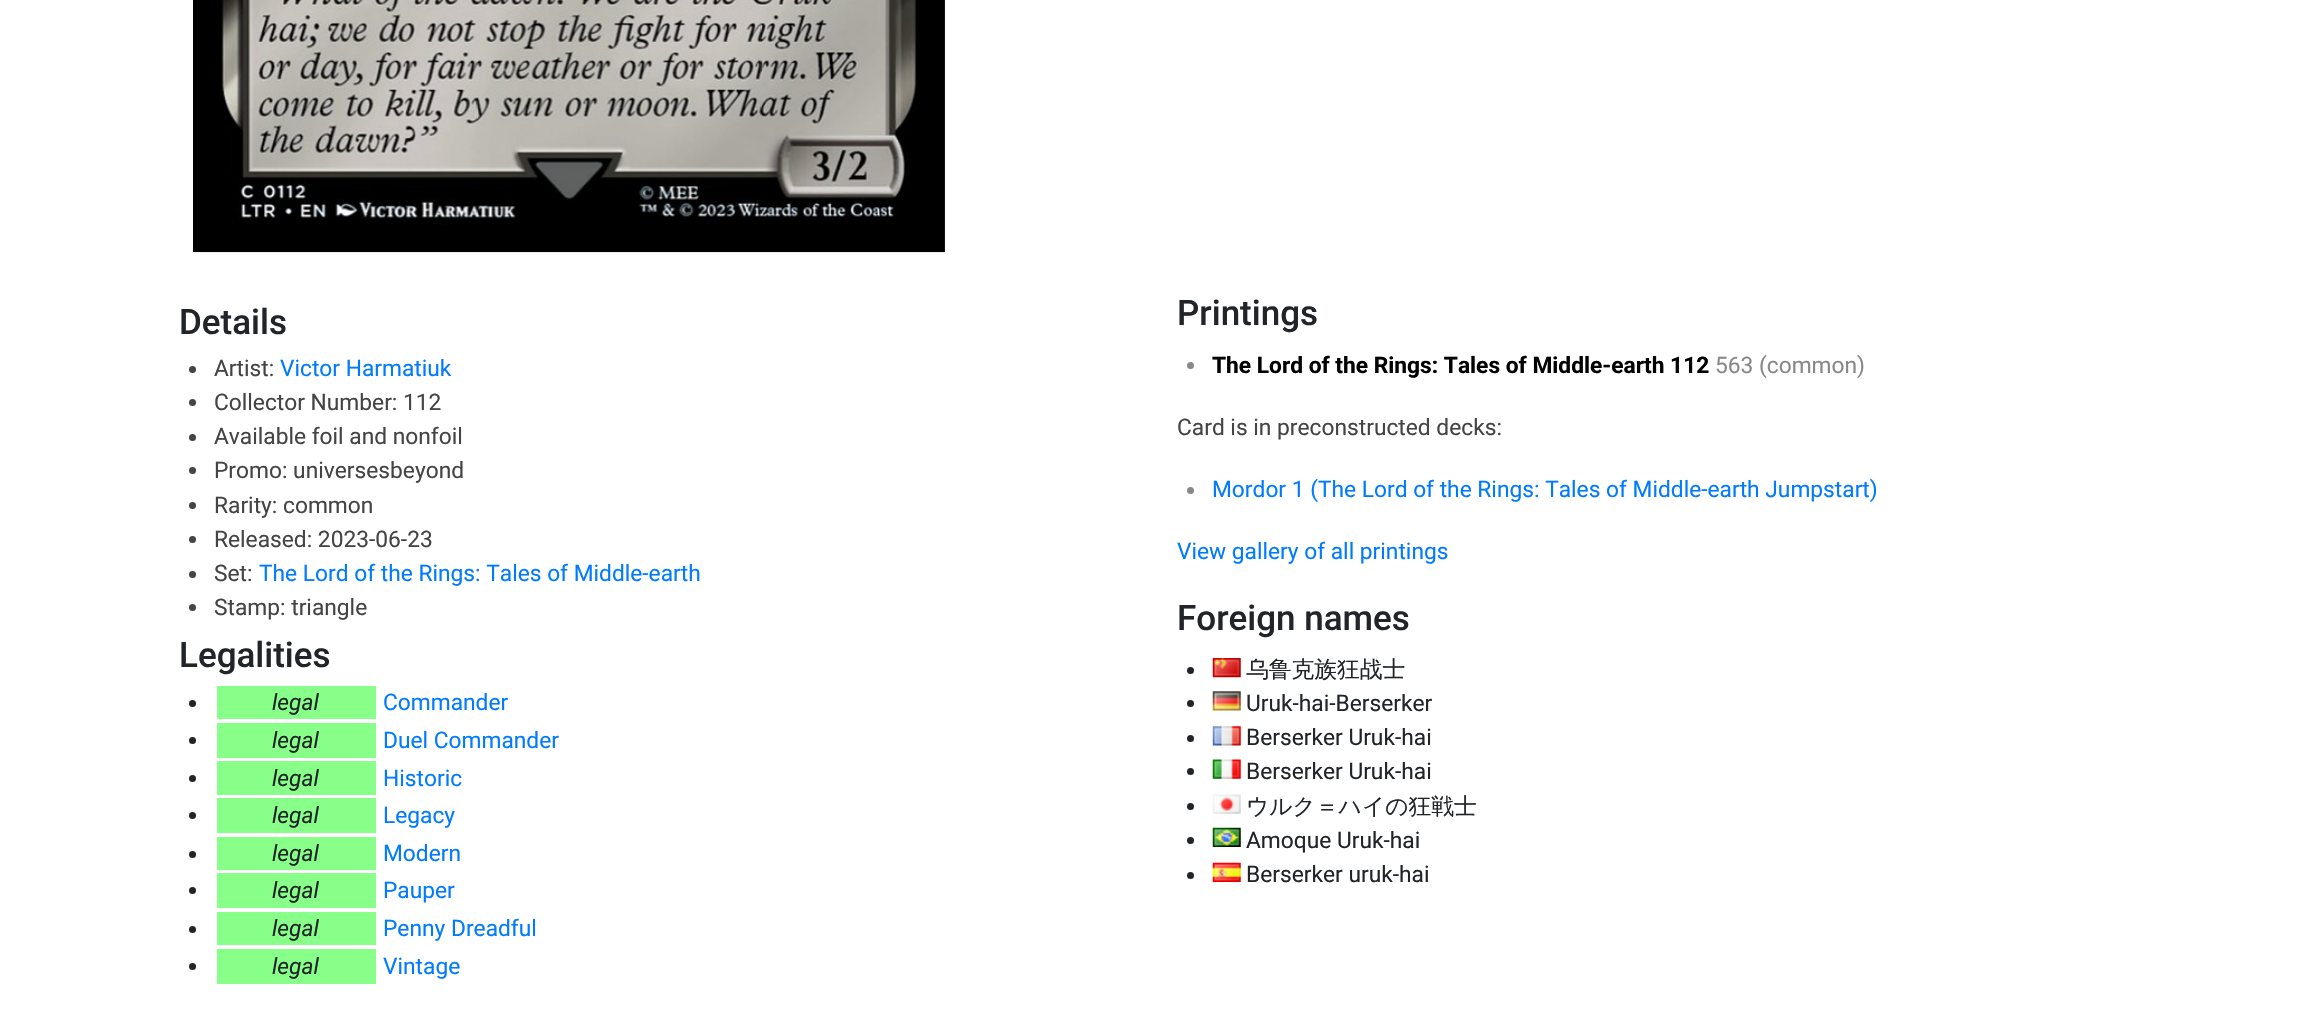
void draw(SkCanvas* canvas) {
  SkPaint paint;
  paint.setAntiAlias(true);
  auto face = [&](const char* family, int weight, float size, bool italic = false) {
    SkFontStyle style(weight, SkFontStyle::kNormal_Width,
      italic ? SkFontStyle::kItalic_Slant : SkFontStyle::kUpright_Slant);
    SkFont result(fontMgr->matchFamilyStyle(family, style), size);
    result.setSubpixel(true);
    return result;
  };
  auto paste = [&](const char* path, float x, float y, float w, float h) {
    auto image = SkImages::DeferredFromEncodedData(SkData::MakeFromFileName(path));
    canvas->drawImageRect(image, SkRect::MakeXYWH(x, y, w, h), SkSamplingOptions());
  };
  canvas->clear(0xffffffff);
  paste("img/1.png", 193, 0, 752, 253);
  paint.setColor(0xff444444);
  canvas->drawCircle(192.5f, 369.5f, 3.5f, paint);
  canvas->drawCircle(192.5f, 402.5f, 3.5f, paint);
  canvas->drawCircle(192.5f, 437.5f, 3.5f, paint);
  canvas->drawCircle(192.5f, 470.5f, 3.5f, paint);
  canvas->drawCircle(192.5f, 505.5f, 3.5f, paint);
  canvas->drawCircle(192.5f, 539.5f, 3.5f, paint);
  canvas->drawCircle(192.5f, 574.5f, 3.5f, paint);
  canvas->drawCircle(192.5f, 607.5f, 3.5f, paint);
  paint.setColor(0xff212529);
  canvas->drawCircle(192.5f, 703.5f, 3.5f, paint);
  paint.setColor(0xff88ff88);
  canvas->drawRect(SkRect::MakeXYWH(217, 686, 159, 33), paint);
  paint.setColor(0xff212529);
  canvas->drawCircle(192.5f, 740.5f, 3.5f, paint);
  paint.setColor(0xff88ff88);
  canvas->drawRect(SkRect::MakeXYWH(217, 723, 159, 35), paint);
  paint.setColor(0xff212529);
  canvas->drawCircle(192.5f, 778.5f, 3.5f, paint);
  paint.setColor(0xff88ff88);
  canvas->drawRect(SkRect::MakeXYWH(217, 761, 159, 34), paint);
  paint.setColor(0xff212529);
  canvas->drawCircle(192.5f, 815.5f, 3.5f, paint);
  paint.setColor(0xff88ff88);
  canvas->drawRect(SkRect::MakeXYWH(217, 798, 159, 35), paint);
  paint.setColor(0xff212529);
  canvas->drawCircle(192.5f, 854.5f, 3.5f, paint);
  paint.setColor(0xff88ff88);
  canvas->drawRect(SkRect::MakeXYWH(217, 837, 159, 33), paint);
  paint.setColor(0xff212529);
  canvas->drawCircle(192.5f, 890.5f, 3.5f, paint);
  paint.setColor(0xff88ff88);
  canvas->drawRect(SkRect::MakeXYWH(217, 873, 159, 35), paint);
  paint.setColor(0xff212529);
  canvas->drawCircle(192.5f, 929.5f, 3.5f, paint);
  paint.setColor(0xff88ff88);
  canvas->drawRect(SkRect::MakeXYWH(217, 912, 159, 33), paint);
  paint.setColor(0xff212529);
  canvas->drawCircle(192.5f, 966.5f, 3.5f, paint);
  paint.setColor(0xff88ff88);
  canvas->drawRect(SkRect::MakeXYWH(217, 949, 159, 35), paint);
  paint.setColor(0xff888888);
  canvas->drawCircle(1190.5f, 365.5f, 3.5f, paint);
  canvas->drawCircle(1190.5f, 490.5f, 3.5f, paint);
  paint.setColor(0xff212529);
  canvas->drawCircle(1190.5f, 670.5f, 3.5f, paint);
  paste("img/2.png", 1212, 658, 29, 20);
  canvas->drawCircle(1190.5f, 703.5f, 3.5f, paint);
  paste("img/3.png", 1212, 691, 29, 20);
  canvas->drawCircle(1190.5f, 738.5f, 3.5f, paint);
  paste("img/4.png", 1212, 726, 29, 20);
  canvas->drawCircle(1190.5f, 771.5f, 3.5f, paint);
  paste("img/5.png", 1212, 759, 29, 20);
  canvas->drawCircle(1190.5f, 806.5f, 3.5f, paint);
  paste("img/6.png", 1212, 794, 29, 20);
  canvas->drawCircle(1190.5f, 840.5f, 3.5f, paint);
  paste("img/7.png", 1212, 827, 29, 20);
  canvas->drawCircle(1190.5f, 875.5f, 3.5f, paint);
  paste("img/8.png", 1212, 862, 29, 20);
  auto f0 = face("Roboto", 500, 35);
  canvas->drawString("Details", 179, 334, f0, paint);
  auto f1 = face("Roboto", 400, 22.75f);
  paint.setColor(0xff444444);
  canvas->drawString("Artist:", 214, 376, f1, paint);
  paint.setColor(0xff007bff);
  canvas->drawString("Victor Harmatiuk", 280, 376, f1, paint);
  paint.setColor(0xff444444);
  {
    const struct { const char* s; float x, y; } items[] = {
      {"Collector Number: 112", 214, 410},
      {"Available foil and nonfoil", 214, 444},
      {"Promo: universesbeyond", 214, 478},
      {"Rarity: common", 214, 513},
      {"Released: 2023-06-23", 214, 547},
      {"Set:", 214, 581},
    };
    for (auto [s, x, y] : items) {
      canvas->drawString(s, x, y, f1, paint);
    }
  }
  paint.setColor(0xff007bff);
  canvas->drawString("The Lord of the Rings: Tales of Middle-earth", 259, 581, f1, paint);
  paint.setColor(0xff444444);
  canvas->drawString("Stamp: triangle", 214, 615, f1, paint);
  paint.setColor(0xff212529);
  canvas->drawString("Legalities", 179, 667, f0, paint);
  auto f2 = face("Roboto", 400, 22.75f, true);
  canvas->drawString("legal", 272, 710, f2, paint);
  paint.setColor(0xff007bff);
  canvas->drawString("Commander", 383, 710, f1, paint);
  paint.setColor(0xff212529);
  canvas->drawString("legal", 272, 748, f2, paint);
  paint.setColor(0xff007bff);
  canvas->drawString("Duel Commander", 383, 748, f1, paint);
  paint.setColor(0xff212529);
  canvas->drawString("legal", 272, 786, f2, paint);
  paint.setColor(0xff007bff);
  canvas->drawString("Historic", 383, 786, f1, paint);
  paint.setColor(0xff212529);
  canvas->drawString("legal", 272, 823, f2, paint);
  paint.setColor(0xff007bff);
  canvas->drawString("Legacy", 383, 823, f1, paint);
  paint.setColor(0xff212529);
  canvas->drawString("legal", 272, 861, f2, paint);
  paint.setColor(0xff007bff);
  canvas->drawString("Modern", 383, 861, f1, paint);
  paint.setColor(0xff212529);
  canvas->drawString("legal", 272, 898, f2, paint);
  paint.setColor(0xff007bff);
  canvas->drawString("Pauper", 383, 898, f1, paint);
  paint.setColor(0xff212529);
  canvas->drawString("legal", 272, 936, f2, paint);
  paint.setColor(0xff007bff);
  canvas->drawString("Penny Dreadful", 383, 936, f1, paint);
  paint.setColor(0xff212529);
  canvas->drawString("legal", 272, 974, f2, paint);
  paint.setColor(0xff007bff);
  canvas->drawString("Vintage", 383, 974, f1, paint);
  paint.setColor(0xff212529);
  canvas->drawString("Printings", 1177, 325, f0, paint);
  auto f3 = face("Roboto", 700, 22.75f);
  paint.setColor(0xff000000);
  canvas->drawString("The Lord of the Rings: Tales of Middle-earth 112", 1212, 373, f3, paint);
  paint.setColor(0xff888888);
  canvas->drawString("563 (common)", 1715, 373, f1, paint);
  paint.setColor(0xff444444);
  canvas->drawString("Card is in preconstructed decks:", 1177, 435, f1, paint);
  paint.setColor(0xff007bff);
  canvas->drawString("Mordor 1 (The Lord of the Rings: Tales of Middle-earth Jumpstart)", 1212, 497, f1, paint);
  canvas->drawString("View gallery of all printings", 1177, 559, f1, paint);
  paint.setColor(0xff212529);
  canvas->drawString("Foreign names", 1177, 630, f0, paint);
  auto f4 = face("WenQuanYi Zen Hei", 500, 22.75f);
  canvas->drawString("乌鲁克族狂战士", 1246, 677, f4, paint);
  {
    const struct { const char* s; float x, y; } items[] = {
      {"Uruk-hai-Berserker", 1246, 711},
      {"Berserker Uruk-hai", 1246, 745},
      {"Berserker Uruk-hai", 1246, 779},
    };
    for (auto [s, x, y] : items) {
      canvas->drawString(s, x, y, f1, paint);
    }
  }
  canvas->drawString("ウルク＝ハイの狂戦士", 1246, 814, f4, paint);
  canvas->drawString("Amoque Uruk-hai", 1246, 848, f1, paint);
  canvas->drawString("Berserker uruk-hai", 1246, 882, f1, paint);
}
